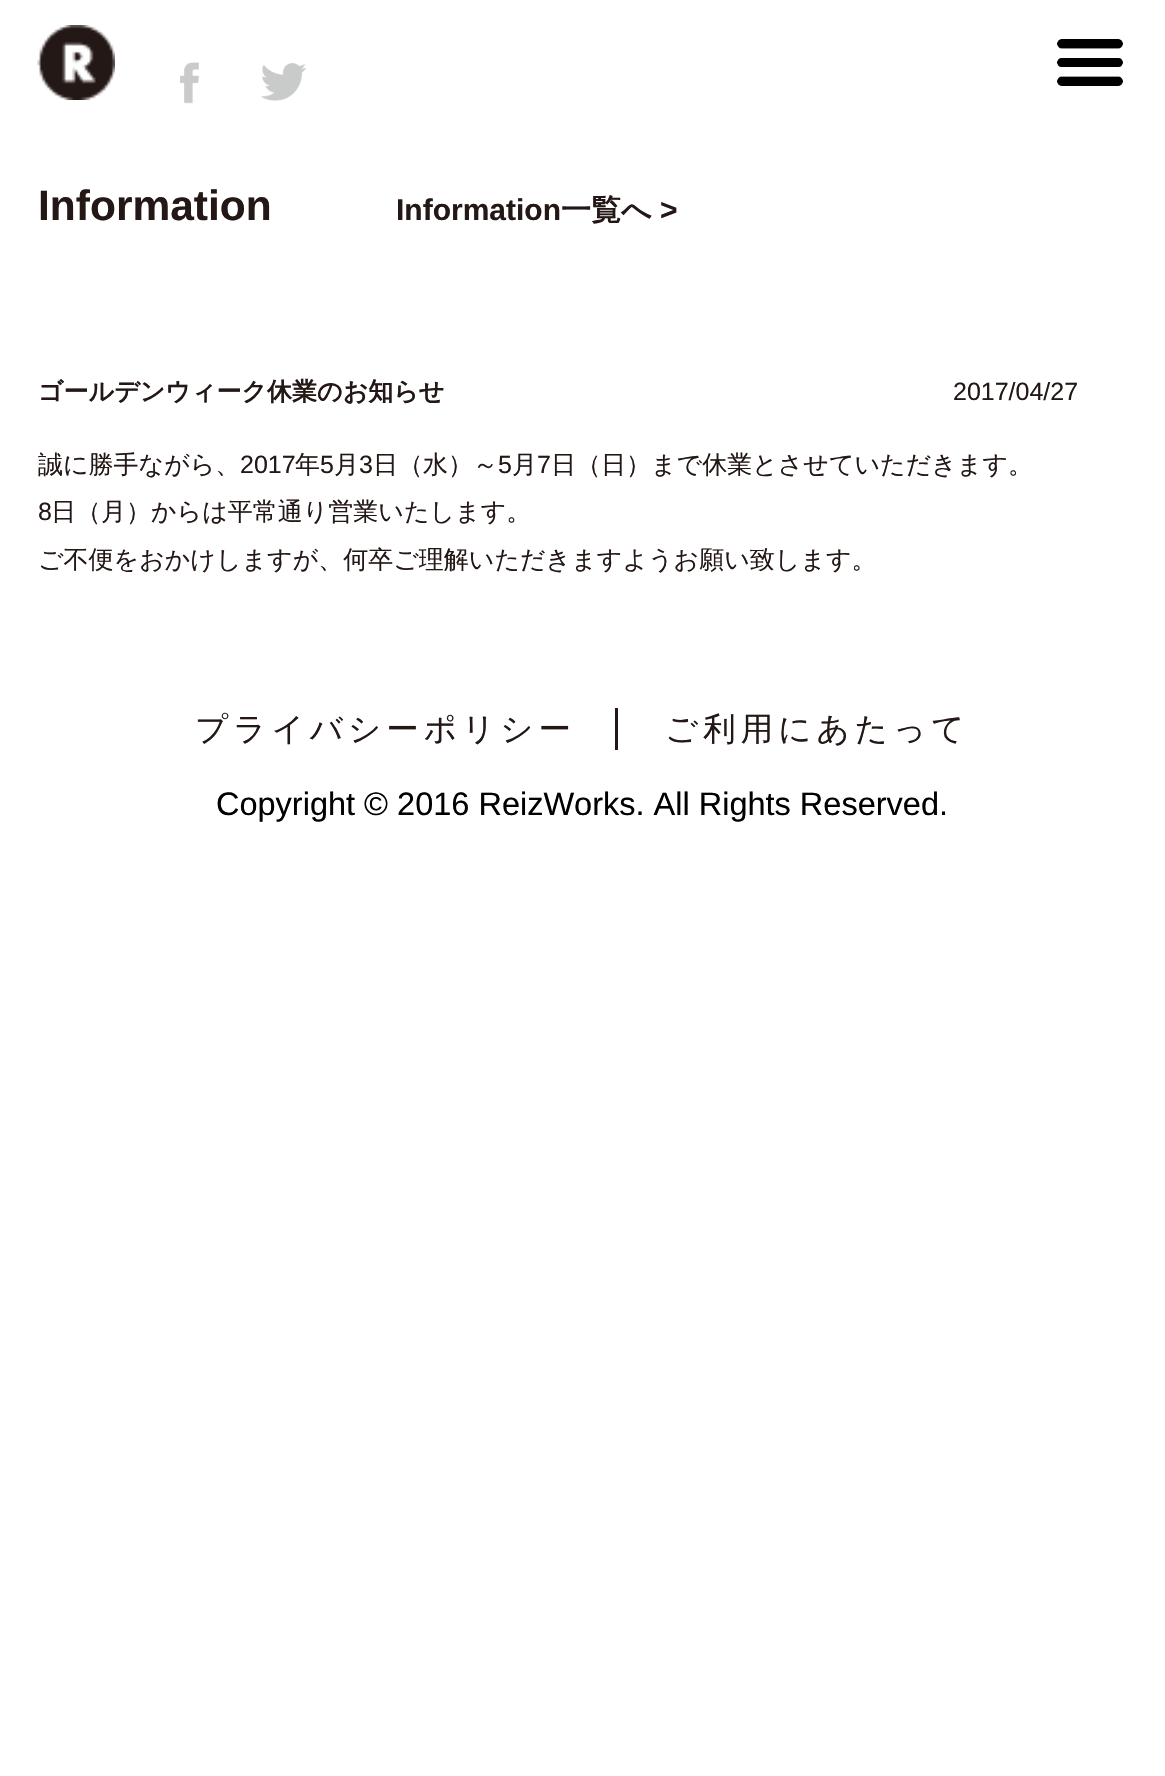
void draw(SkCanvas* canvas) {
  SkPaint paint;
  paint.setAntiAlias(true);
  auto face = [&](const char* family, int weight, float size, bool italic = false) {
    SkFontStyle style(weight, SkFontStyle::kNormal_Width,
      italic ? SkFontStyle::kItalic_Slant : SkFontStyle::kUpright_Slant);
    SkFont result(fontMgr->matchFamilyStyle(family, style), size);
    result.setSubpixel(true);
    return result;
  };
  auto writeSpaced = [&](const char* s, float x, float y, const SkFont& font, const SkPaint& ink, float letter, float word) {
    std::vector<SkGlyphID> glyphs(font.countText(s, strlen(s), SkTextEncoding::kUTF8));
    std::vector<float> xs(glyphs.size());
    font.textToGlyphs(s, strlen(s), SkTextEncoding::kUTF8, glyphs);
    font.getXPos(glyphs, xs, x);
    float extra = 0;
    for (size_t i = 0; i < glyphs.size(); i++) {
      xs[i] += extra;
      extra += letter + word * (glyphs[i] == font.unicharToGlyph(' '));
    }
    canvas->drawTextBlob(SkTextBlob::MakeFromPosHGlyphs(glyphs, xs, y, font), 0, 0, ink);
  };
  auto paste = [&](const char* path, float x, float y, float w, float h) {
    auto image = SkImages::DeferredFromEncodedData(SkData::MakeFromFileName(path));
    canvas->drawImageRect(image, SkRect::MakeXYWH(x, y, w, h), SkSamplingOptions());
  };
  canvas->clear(0xffffffff);
  paste("img/1.png", 37, 25, 78, 75);
  paste("img/2.png", 180, 62, 19, 42);
  paste("img/3.png", 261, 63, 46, 38);
  paste("img/4.png", 1057, 39, 66, 47);
  paint.setColor(0xff231815);
  canvas->drawRect(SkRect::MakeXYWH(615, 708, 3, 42), paint);
  auto f0 = face("Liberation Sans", 700, 42.5f);
  canvas->drawString("Information", 38, 220, f0, paint);
  auto f1 = face("Liberation Sans", 700, 30);
  canvas->drawString("Information", 396, 220, f1, paint);
  auto f2 = face("WenQuanYi Zen Hei", 700, 30);
  canvas->drawString("一覧へ", 561, 220, f2, paint);
  canvas->drawString(">", 660, 220, f1, paint);
  auto f3 = face("WenQuanYi Zen Hei", 700, 25);
  canvas->drawString("ゴールデンウィーク休業のお知らせ", 38, 400, f3, paint);
  auto f4 = face("WenQuanYi Zen Hei", 500, 25);
  canvas->drawString("誠に勝手ながら、", 38, 473, f4, paint);
  auto f5 = face("Liberation Sans", 400, 25);
  canvas->drawString("2017", 240, 473, f5, paint);
  canvas->drawString("年", 295, 473, f4, paint);
  canvas->drawString("5", 320, 473, f5, paint);
  canvas->drawString("月", 334, 473, f4, paint);
  canvas->drawString("3", 359, 473, f5, paint);
  canvas->drawString("日（水）～", 373, 473, f4, paint);
  canvas->drawString("5", 498, 473, f5, paint);
  canvas->drawString("月", 512, 473, f4, paint);
  canvas->drawString("7", 537, 473, f5, paint);
  canvas->drawString("日（日）まで休業とさせていただきます。", 551, 473, f4, paint);
  canvas->drawString("8", 38, 520, f5, paint);
  canvas->drawString("日（月）からは平常通り営業いたします。", 51, 520, f4, paint);
  canvas->drawString("ご不便をおかけしますが、何卒ご理解いただきますようお願い致します。", 38, 568, f4, paint);
  canvas->drawString("2017/04/27", 953, 400, f5, paint);
  auto f6 = face("WenQuanYi Zen Hei", 500, 32.5f);
  writeSpaced("プライバシーポリシー", 195, 740, f6, paint, 5, 0);
  writeSpaced("ご利用にあたって", 665, 740, f6, paint, 5, 0);
  auto f7 = face("Liberation Sans", 400, 32.5f);
  paint.setColor(0xff000000);
  canvas->drawString("Copyright © 2016 ReizWorks. All Rights Reserved.", 216, 815, f7, paint);
}
